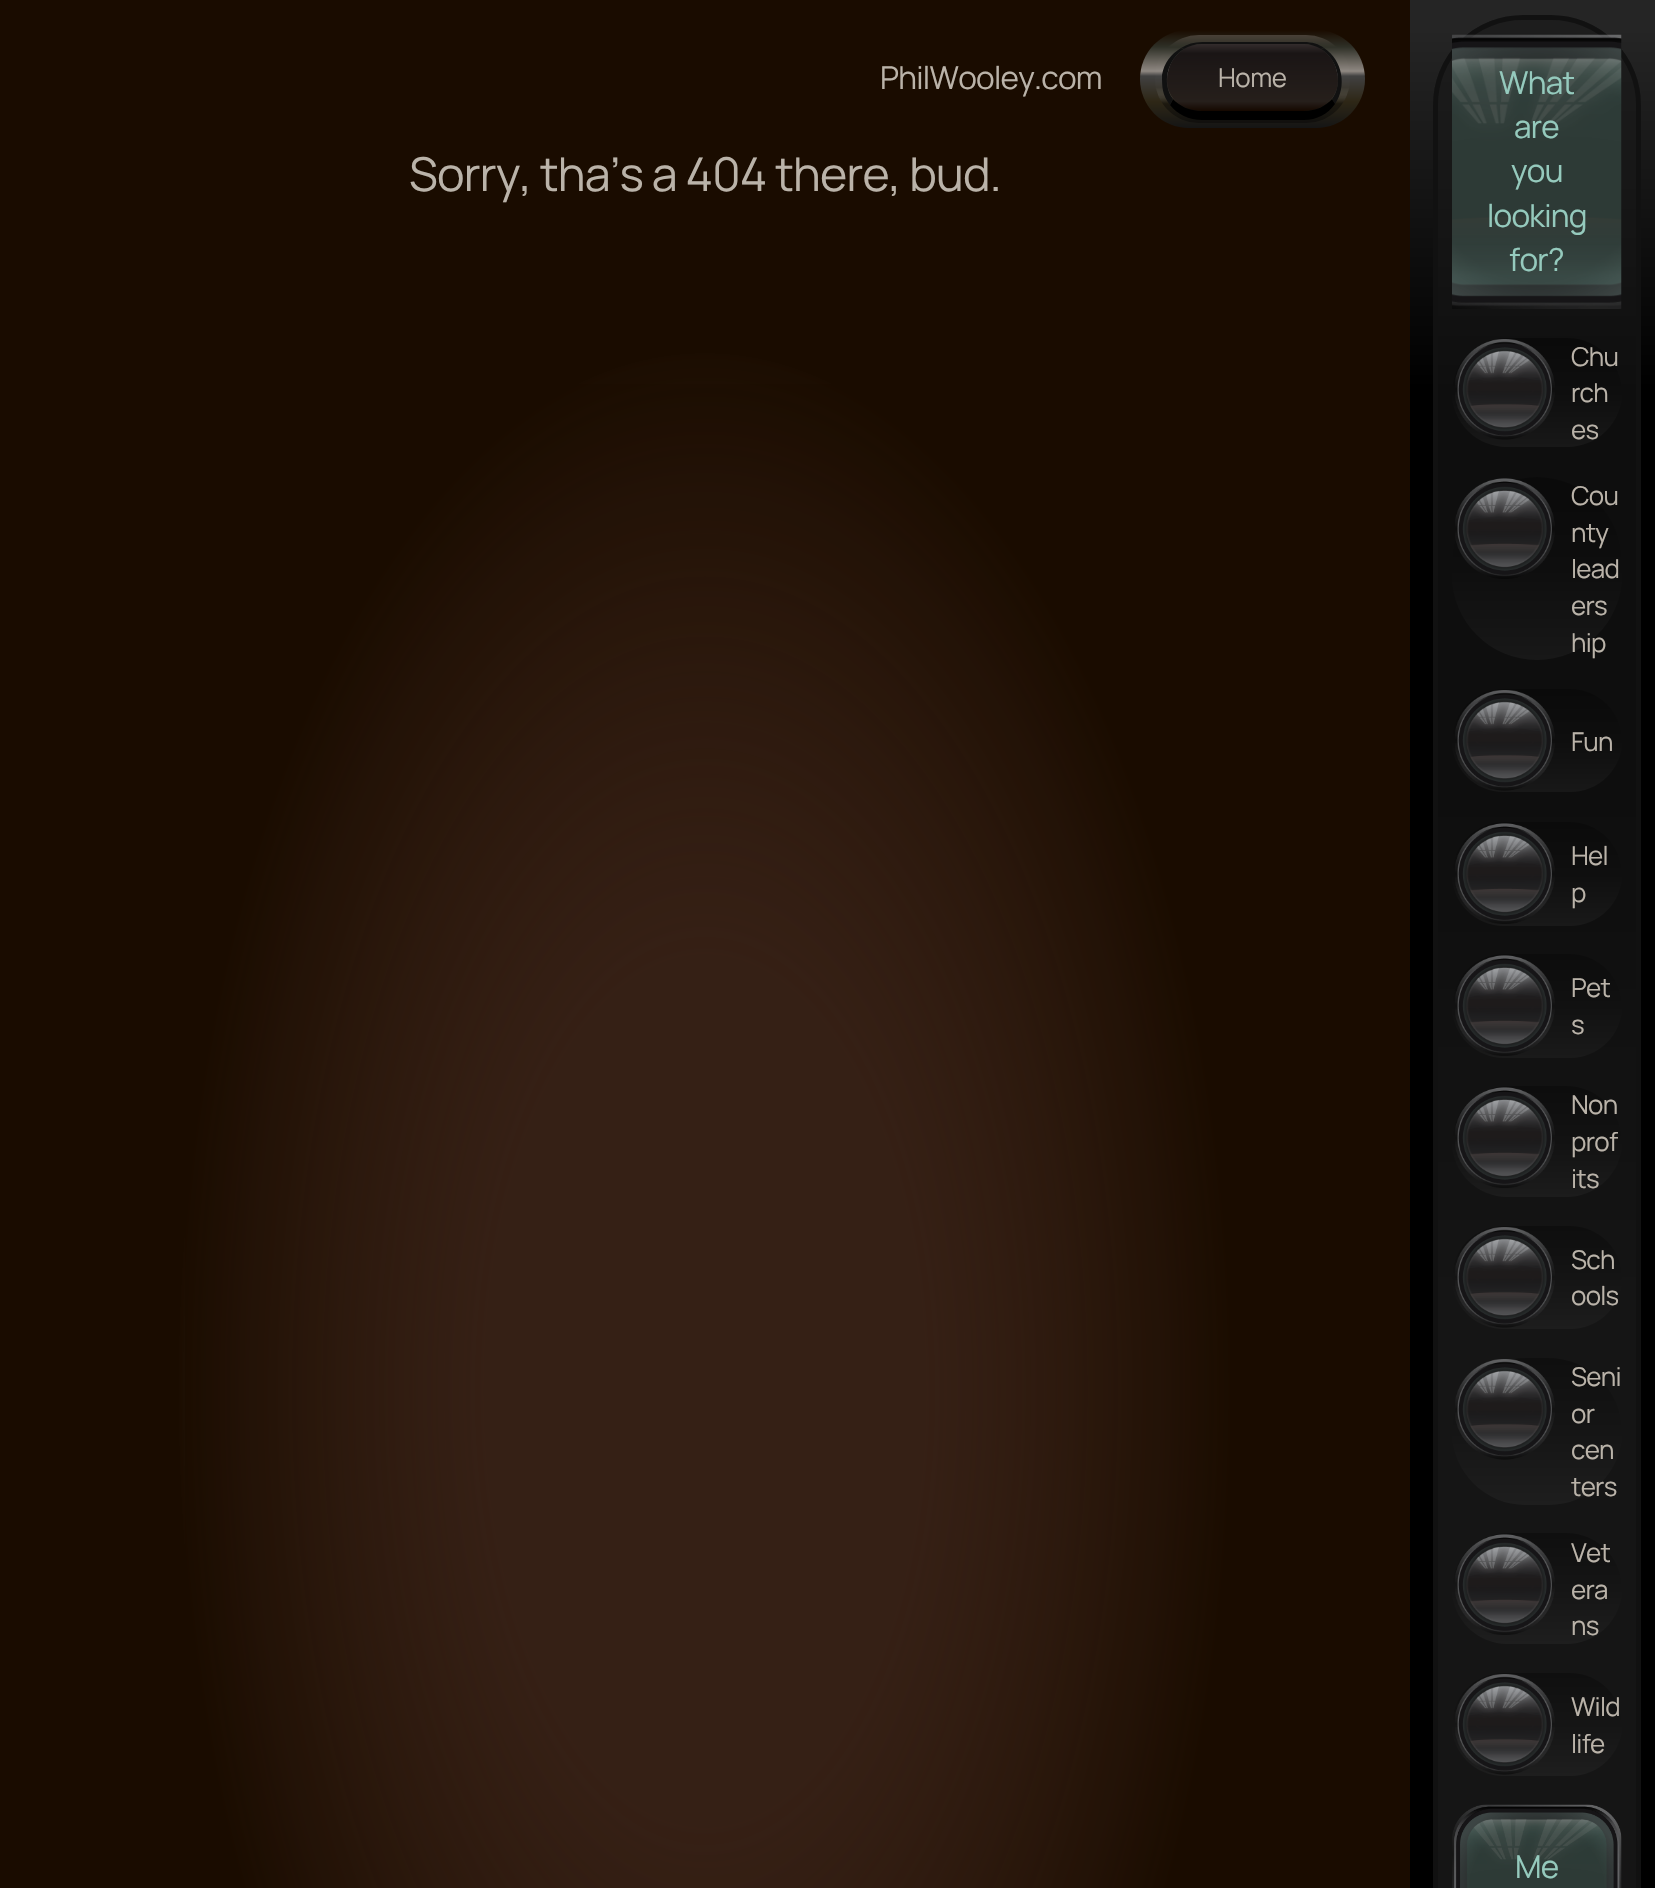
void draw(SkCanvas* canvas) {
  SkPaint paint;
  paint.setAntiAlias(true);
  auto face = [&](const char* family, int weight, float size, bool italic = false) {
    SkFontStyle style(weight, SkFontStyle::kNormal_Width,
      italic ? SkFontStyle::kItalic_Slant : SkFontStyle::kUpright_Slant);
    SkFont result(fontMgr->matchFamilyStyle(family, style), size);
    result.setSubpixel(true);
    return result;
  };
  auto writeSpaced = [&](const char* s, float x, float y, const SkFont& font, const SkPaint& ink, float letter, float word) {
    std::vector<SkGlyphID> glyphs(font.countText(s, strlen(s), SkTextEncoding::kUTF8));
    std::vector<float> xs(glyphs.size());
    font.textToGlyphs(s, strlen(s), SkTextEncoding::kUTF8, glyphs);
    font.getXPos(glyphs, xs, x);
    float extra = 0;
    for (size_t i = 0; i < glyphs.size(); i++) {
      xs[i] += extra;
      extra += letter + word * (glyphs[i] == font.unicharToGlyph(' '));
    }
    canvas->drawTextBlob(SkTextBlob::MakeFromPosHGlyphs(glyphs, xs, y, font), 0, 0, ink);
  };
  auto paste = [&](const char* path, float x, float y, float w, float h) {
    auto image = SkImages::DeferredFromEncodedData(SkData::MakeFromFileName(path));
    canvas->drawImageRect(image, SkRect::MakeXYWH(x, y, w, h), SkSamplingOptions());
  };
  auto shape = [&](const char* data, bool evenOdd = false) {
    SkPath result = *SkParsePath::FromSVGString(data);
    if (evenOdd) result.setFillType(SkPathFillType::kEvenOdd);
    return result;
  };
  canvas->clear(0xffffffff);
  {
    const SkColor colors[] = {0xff000000, 0xff252525};
    const float stops[] = {0.86f, 0.99f};
    const SkPoint ends[] = {{828, 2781}, {828, 0}};
    paint.setShader(SkGradientShader::MakeLinear(ends, colors, stops, 2, SkTileMode::kClamp));
    paint.setAlpha(255);
  }
  canvas->drawRect(SkRect::MakeXYWH(185, 0, 1470, 1888), paint);
  {
    const SkColor colors[] = {0xb84a2c1d, 0xff1a0c00};
    const float stops[] = {0.22f, 0.53f};
    SkMatrix m = SkMatrix::Translate(705, 1391).preScale(997, 1966);
    paint.setShader(SkGradientShader::MakeRadial({0, 0}, 1, colors, stops, 2, SkTileMode::kClamp, 0, &m));
    paint.setAlpha(255);
  }
  canvas->drawRect(SkRect::MakeXYWH(0, 0, 1410, 1888), paint);
  {
    const SkColor colors[] = {0xff151515, 0xff2e2716, 0xff414141, 0xff8f8882, 0xff2e2f26, 0xff1a0c00};
    const float stops[] = {0, 0.27f, 0.53f, 0.58f, 0.83f, 1};
    const SkPoint ends[] = {{1253, 128}, {1253, 30}};
    paint.setShader(SkGradientShader::MakeLinear(ends, colors, stops, 6, SkTileMode::kClamp));
    paint.setAlpha(255);
  }
  canvas->drawRoundRect(SkRect::MakeXYWH(1140, 30, 225, 98), 49, 49, paint);
  {
    const SkColor colors[] = {0x5c000000, 0x03ffffff, 0x00ffffff, 0x2effffff};
    const float stops[] = {0.22f, 0.4f, 0.86f, 1};
    const SkPoint ends[] = {{1253, 123}, {1253, 35}};
    paint.setShader(SkGradientShader::MakeLinear(ends, colors, stops, 4, SkTileMode::kClamp));
    paint.setAlpha(255);
  }
  canvas->drawRoundRect(SkRect::MakeXYWH(1155, 35, 195, 88), 44, 44, paint);
  {
    const SkColor colors[] = {0xff150800, 0xff261f1b, 0xff1a1515, 0xff332c2c};
    const float stops[] = {0, 0.14f, 0.86f, 1};
    const SkPoint ends[] = {{1253, 111}, {1253, 44}};
    paint.setShader(SkGradientShader::MakeLinear(ends, colors, stops, 4, SkTileMode::kClamp));
    paint.setAlpha(255);
  }
  canvas->drawPath(shape("M1202 44H1304C1323 44 1338 60 1338 81C1338 98 1323 111 1304 111H1202C1182 111 1167 98 1167 81C1167 60 1182 44 1202 44Z"), paint);
  paint.setShader(nullptr);
  paint.setColor(0xff111111);
  canvas->drawPath(shape("M1202 42C1194 42 1187 44 1181 48L1184 49C1189 46 1195 44 1202 44H1304C1310 44 1316 46 1321 49L1324 48C1319 44 1312 42 1304 42Z"), paint);
  canvas->drawPath(shape("M1324 48C1343 60 1347 87 1335 104L1332 99C1344 83 1337 59 1321 49Z"), paint);
  paint.setColor(0xff000000);
  canvas->drawPath(shape("M1202 120H1304C1317 120 1328 114 1335 104L1332 99C1326 106 1316 111 1304 111H1202C1190 111 1179 106 1173 99L1170 105C1177 114 1189 120 1202 120Z"), paint);
  paint.setColor(0xff111111);
  canvas->drawPath(shape("M1162 75C1164 63 1171 54 1181 48L1184 49C1168 59 1161 83 1173 99L1170 105C1162 95 1162 87 1162 75Z"), paint);
  canvas->save();
  canvas->clipPath(shape("M1523 15H1551C1600.5 15 1641 55.5 1641 105V2676C1641 2725.5 1600.5 2766 1551 2766H1523C1473.5 2766 1433 2725.5 1433 2676V105C1433 55.5 1473.5 15 1523 15Z"), true);
  {
    const SkColor colors[] = {0xa6212121, 0x9c171717};
    const float stops[] = {0.51f, 0.72f};
    const SkPoint ends[] = {{1537, 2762}, {1537, 20}};
    paint.setShader(SkGradientShader::MakeLinear(ends, colors, stops, 2, SkTileMode::kClamp));
    paint.setAlpha(255);
  }
  canvas->drawRect(SkRect::MakeXYWH(1433, 20, 208, 1868), paint);
  canvas->restore();
  paint.setStroke(true);
  paint.setStrokeWidth(5);
  paint.setShader(nullptr);
  paint.setColor(0xff111111);
  canvas->drawRoundRect(SkRect::MakeXYWH(1435.5f, 17.5f, 203, 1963), 87.5f, 87.5f, paint);
  paste("img/1.png", 1452, 34, 170, 275);
  paint.setStroke(false);
  {
    const SkColor colors[] = {0xff181818, 0xff0e0e0e, 0xff0a0a0a};
    const float stops[] = {0, 0.5f, 0.99f};
    const SkPoint ends[] = {{1537, 447}, {1537, 338}};
    paint.setShader(SkGradientShader::MakeLinear(ends, colors, stops, 3, SkTileMode::kClamp));
    paint.setAlpha(255);
  }
  canvas->drawRoundRect(SkRect::MakeXYWH(1452, 338, 170, 109), 54.5f, 54.5f, paint);
  paste("img/2.png", 1455, 339, 100, 101);
  {
    const SkColor colors[] = {0xff181818, 0xff0e0e0e, 0xff0a0a0a};
    const float stops[] = {0, 0.5f, 0.99f};
    const SkPoint ends[] = {{1537, 660}, {1537, 477}};
    paint.setShader(SkGradientShader::MakeLinear(ends, colors, stops, 3, SkTileMode::kClamp));
    paint.setAlpha(255);
  }
  canvas->drawRoundRect(SkRect::MakeXYWH(1452, 477, 170, 183), 85, 85, paint);
  paste("img/3.png", 1455, 478, 100, 101);
  {
    const SkColor colors[] = {0xff181818, 0xff0e0e0e, 0xff0a0a0a};
    const float stops[] = {0, 0.5f, 0.99f};
    const SkPoint ends[] = {{1537, 792}, {1537, 689}};
    paint.setShader(SkGradientShader::MakeLinear(ends, colors, stops, 3, SkTileMode::kClamp));
    paint.setAlpha(255);
  }
  canvas->drawRoundRect(SkRect::MakeXYWH(1452, 689, 170, 103), 51.5f, 51.5f, paint);
  paste("img/4.png", 1455, 690, 100, 101);
  {
    const SkColor colors[] = {0xff191919, 0xff0f0f0f, 0xff0b0b0b};
    const float stops[] = {0, 0.5f, 0.99f};
    const SkPoint ends[] = {{1537, 926}, {1537, 822}};
    paint.setShader(SkGradientShader::MakeLinear(ends, colors, stops, 3, SkTileMode::kClamp));
    paint.setAlpha(255);
  }
  canvas->drawRoundRect(SkRect::MakeXYWH(1452, 822, 170, 104), 52, 52, paint);
  paste("img/5.png", 1455, 823, 100, 101);
  {
    const SkColor colors[] = {0xff1a1a1a, 0xff111111, 0xff0c0c0c};
    const float stops[] = {0, 0.5f, 0.99f};
    const SkPoint ends[] = {{1537, 1058}, {1537, 954}};
    paint.setShader(SkGradientShader::MakeLinear(ends, colors, stops, 3, SkTileMode::kClamp));
    paint.setAlpha(255);
  }
  canvas->drawRoundRect(SkRect::MakeXYWH(1452, 954, 170, 104), 52, 52, paint);
  paste("img/6.png", 1455, 955, 100, 101);
  {
    const SkColor colors[] = {0xff1c1c1c, 0xff121212, 0xff0d0d0d};
    const float stops[] = {0, 0.5f, 0.99f};
    const SkPoint ends[] = {{1537, 1197}, {1537, 1086}};
    paint.setShader(SkGradientShader::MakeLinear(ends, colors, stops, 3, SkTileMode::kClamp));
    paint.setAlpha(255);
  }
  canvas->drawRoundRect(SkRect::MakeXYWH(1452, 1086, 170, 111), 55.5f, 55.5f, paint);
  paste("img/7.png", 1455, 1087, 100, 101);
  {
    const SkColor colors[] = {0xff1d1d1d, 0xff141414, 0xff0e0e0e};
    const float stops[] = {0, 0.5f, 0.99f};
    const SkPoint ends[] = {{1537, 1329}, {1537, 1226}};
    paint.setShader(SkGradientShader::MakeLinear(ends, colors, stops, 3, SkTileMode::kClamp));
    paint.setAlpha(255);
  }
  canvas->drawRoundRect(SkRect::MakeXYWH(1452, 1226, 170, 103), 51.5f, 51.5f, paint);
  paste("img/8.png", 1455, 1227, 100, 101);
  {
    const SkColor colors[] = {0xff1e1e1e, 0xff151515, 0xff0f0f0f};
    const float stops[] = {0, 0.5f, 0.99f};
    const SkPoint ends[] = {{1537, 1505}, {1537, 1358}};
    paint.setShader(SkGradientShader::MakeLinear(ends, colors, stops, 3, SkTileMode::kClamp));
    paint.setAlpha(255);
  }
  canvas->drawRoundRect(SkRect::MakeXYWH(1452, 1358, 170, 147), 73.5f, 73.5f, paint);
  paste("img/9.png", 1455, 1359, 100, 101);
  {
    const SkColor colors[] = {0xff1e1e1e, 0xff151515, 0xff0f0f0f};
    const float stops[] = {0, 0.5f, 0.99f};
    const SkPoint ends[] = {{1537, 1644}, {1537, 1533}};
    paint.setShader(SkGradientShader::MakeLinear(ends, colors, stops, 3, SkTileMode::kClamp));
    paint.setAlpha(255);
  }
  canvas->drawRoundRect(SkRect::MakeXYWH(1452, 1533, 170, 111), 55.5f, 55.5f, paint);
  paste("img/10.png", 1455, 1534, 100, 101);
  {
    const SkColor colors[] = {0xff1e1e1e, 0xff151515, 0xff0f0f0f};
    const float stops[] = {0, 0.5f, 0.99f};
    const SkPoint ends[] = {{1537, 1776}, {1537, 1673}};
    paint.setShader(SkGradientShader::MakeLinear(ends, colors, stops, 3, SkTileMode::kClamp));
    paint.setAlpha(255);
  }
  canvas->drawRoundRect(SkRect::MakeXYWH(1452, 1673, 170, 103), 51.5f, 51.5f, paint);
  paste("img/11.png", 1455, 1674, 100, 101);
  paste("img/12.png", 1452, 1804, 170, 84);
  auto f0 = face("Manrope", 400, 31.5f);
  paint.setShader(nullptr);
  paint.setColor(0xffbab3a9);
  writeSpaced("PhilWooley.com", 880, 89, f0, paint, -0.75f, 0);
  auto f1 = face("Manrope", 400, 26);
  writeSpaced("Home", 1218, 87, f1, paint, -0.5f, 0);
  auto f2 = face("Manrope", 400, 46.6f);
  writeSpaced("Sorry, tha’s a 404 there, bud.", 409, 191, f2, paint, -0.75f, 0);
  paint.setColor(0xff95cabd);
  {
    const struct { const char* s; float x, y; } items[] = {
      {"What", 1499, 94},
      {"are", 1514, 138},
      {"you", 1511, 182},
      {"looking", 1487, 227},
      {"for?", 1509, 271},
    };
    for (auto [s, x, y] : items) {
      writeSpaced(s, x, y, f0, paint, -0.75f, 0);
    }
  }
  paint.setColor(0xffbab3a9);
  {
    const struct { const char* s; float x, y; } items[] = {
      {"Chu", 1571, 366},
      {"rch", 1571, 402},
      {"es", 1571, 439},
      {"Cou", 1571, 505},
      {"nty", 1571, 542},
      {"lead", 1571, 578},
      {"ers", 1571, 615},
      {"hip", 1571, 652},
      {"Fun", 1571, 751},
      {"Hel", 1571, 865},
      {"p", 1571, 902},
      {"Pet", 1571, 997},
      {"s", 1571, 1034},
      {"Non", 1571, 1114},
      {"prof", 1571, 1151},
      {"its", 1571, 1188},
      {"Sch", 1571, 1269},
      {"ools", 1571, 1305},
      {"Seni", 1571, 1386},
      {"or", 1571, 1423},
      {"cen", 1571, 1459},
      {"ters", 1571, 1496},
      {"Vet", 1571, 1562},
      {"era", 1571, 1599},
      {"ns", 1571, 1635},
      {"Wild", 1571, 1716},
      {"life", 1571, 1753},
    };
    for (auto [s, x, y] : items) {
      writeSpaced(s, x, y, f1, paint, -0.75f, 0);
    }
  }
  paint.setColor(0xff95cabd);
  writeSpaced("Me", 1515, 1878, f0, paint, -0.75f, 0);
}
